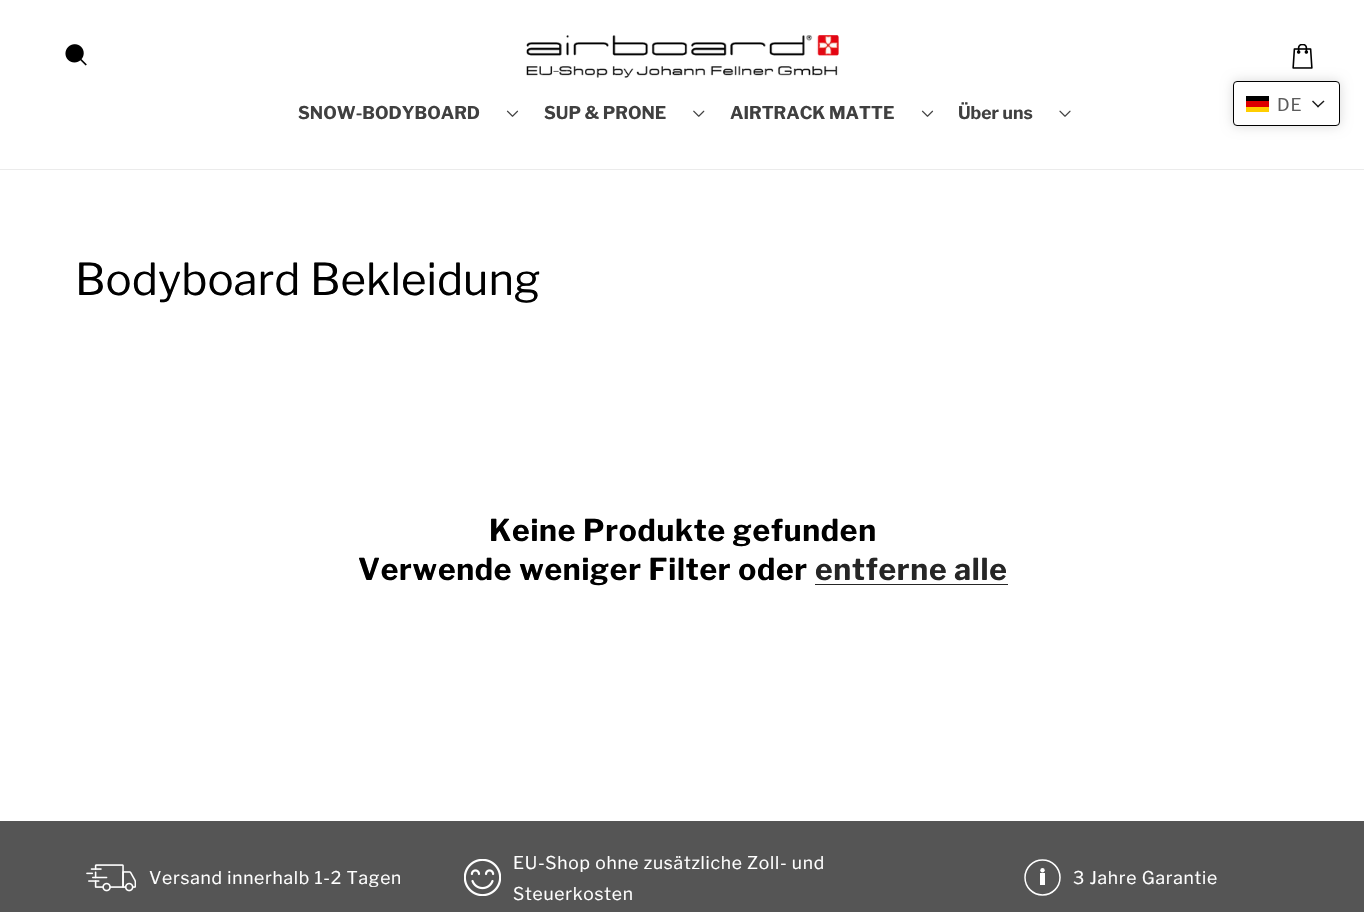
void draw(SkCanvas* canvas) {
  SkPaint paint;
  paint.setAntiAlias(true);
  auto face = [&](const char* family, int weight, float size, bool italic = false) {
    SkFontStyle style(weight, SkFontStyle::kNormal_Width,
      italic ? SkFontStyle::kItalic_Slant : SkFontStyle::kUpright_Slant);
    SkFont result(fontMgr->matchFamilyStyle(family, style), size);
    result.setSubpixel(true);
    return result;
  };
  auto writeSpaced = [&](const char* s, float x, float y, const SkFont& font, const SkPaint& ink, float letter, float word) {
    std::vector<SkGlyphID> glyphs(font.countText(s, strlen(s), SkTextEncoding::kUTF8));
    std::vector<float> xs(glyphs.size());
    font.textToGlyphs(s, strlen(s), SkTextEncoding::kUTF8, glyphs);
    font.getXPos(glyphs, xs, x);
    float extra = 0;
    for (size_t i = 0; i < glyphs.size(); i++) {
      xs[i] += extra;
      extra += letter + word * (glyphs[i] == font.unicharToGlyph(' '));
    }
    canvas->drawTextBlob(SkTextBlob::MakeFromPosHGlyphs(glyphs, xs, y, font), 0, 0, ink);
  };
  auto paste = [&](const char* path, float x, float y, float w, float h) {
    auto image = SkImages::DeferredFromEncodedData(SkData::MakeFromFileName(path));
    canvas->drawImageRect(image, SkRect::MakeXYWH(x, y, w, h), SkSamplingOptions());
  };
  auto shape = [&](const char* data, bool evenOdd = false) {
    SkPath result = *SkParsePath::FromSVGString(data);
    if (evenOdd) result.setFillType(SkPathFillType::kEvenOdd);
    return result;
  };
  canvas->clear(0xffffffff);
  paint.setColor(0xffebebeb);
  canvas->drawRect(SkRect::MakeXYWH(0, 169, 1364, 1), paint);
  paste("img/1.png", 65, 44, 22, 22);
  paste("img/2.png", 526, 35, 313, 43);
  paste("img/3.png", 1292, 44, 21, 25);
  paste("img/4.png", 506, 110, 13, 7);
  paste("img/5.png", 693, 110, 12, 7);
  paste("img/4.png", 921, 110, 13, 7);
  paste("img/6.png", 1059, 110, 12, 7);
  paint.setColor(0x26000000);
  paint.setMaskFilter(SkMaskFilter::MakeBlur(kNormal_SkBlurStyle, 6));
  canvas->drawRoundRect(SkRect::MakeXYWH(1233, 81, 107, 45), 4, 4, paint);
  paint.setMaskFilter(nullptr);
  paint.setColor(0xffffffff);
  canvas->drawRoundRect(SkRect::MakeXYWH(1233.5f, 81.5f, 106, 44), 3.5f, 3.5f, paint);
  paint.setStroke(true);
  paint.setStrokeWidth(1);
  paint.setColor(0xff000000);
  canvas->drawRoundRect(SkRect::MakeXYWH(1233.5f, 81.5f, 106, 44), 3.5f, 3.5f, paint);
  paint.setStroke(false);
  {
    const struct { float x, y, w, h; SkColor color; } items[] = {
      {1246, 107, 23, 5, 0xffffce00},
      {1246, 96, 23, 5, 0xff000000},
      {1246, 101, 23, 6, 0xffdd0000},
    };
    for (auto [x, y, w, h, color] : items) {
      paint.setColor(color);
      canvas->drawRect(SkRect::MakeXYWH(x, y, w, h), paint);
    }
  }
  paint.setColor(0xff1a1a1a);
  canvas->drawPath(shape("M1323.5 100.5L1324.5 101.5L1318 107.5L1317 106.5Z"), paint);
  canvas->drawPath(shape("M1313 100.5L1319 106.5L1318 107.5L1312 101.5Z"), paint);
  paint.setColor(0xff262626);
  canvas->drawRect(SkRect::MakeXYWH(815, 584, 193, 1), paint);
  paint.setColor(0xff555555);
  canvas->drawRect(SkRect::MakeXYWH(0, 821, 1364, 91), paint);
  paste("img/7.png", 86, 864, 50, 28);
  paste("img/8.png", 464, 859, 37, 37);
  paint.setStroke(true);
  paint.setStrokeWidth(1.5f);
  paint.setColor(0xffffffff);
  canvas->drawCircle(1042.5f, 877.5f, 17.5f, paint);
  paint.setStroke(false);
  canvas->drawCircle(1042.5f, 870.2f, 2.2f, paint);
  canvas->drawRect(SkRect::MakeXYWH(1040, 873, 5, 12), paint);
  auto f0 = face("Libre Franklin", 700, 17.5f);
  paint.setColor(0xff404040);
  {
    const struct { const char* s; float x, y; } items[] = {
      {"SNOW-BODYBOARD", 298, 119},
      {"SUP & PRONE", 544, 119},
      {"AIRTRACK MATTE", 730, 119},
      {"Über uns", 958, 119},
    };
    for (auto [s, x, y] : items) {
      canvas->drawString(s, x, y, f0, paint);
    }
  }
  auto f1 = face("Libre Franklin", 400, 17.5f);
  paint.setColor(0xff5c5c5c);
  writeSpaced("DE", 1277, 111, f1, paint, 0.75f, 0);
  auto f2 = face("Libre Franklin", 400, 43.75f);
  paint.setColor(0xff000000);
  canvas->drawString("Bodyboard Bekleidung", 75, 295, f2, paint);
  auto f3 = face("Libre Franklin", 700, 30);
  writeSpaced("Keine Produkte gefunden", 489, 541, f3, paint, 0.75f, 0);
  writeSpaced("Verwende weniger Filter oder", 358, 580, f3, paint, 0.75f, 0);
  paint.setColor(0xff262626);
  writeSpaced("entferne alle", 815, 580, f3, paint, 0.75f, 0);
  paint.setColor(0xffffffff);
  {
    const struct { const char* s; float x, y; } items[] = {
      {"Versand innerhalb 1-2 Tagen", 149, 884},
      {"EU-Shop ohne zusätzliche Zoll- und", 513, 869},
      {"Steuerkosten", 513, 900},
      {"3 Jahre Garantie", 1073, 884},
    };
    for (auto [s, x, y] : items) {
      writeSpaced(s, x, y, f1, paint, 0.75f, 0);
    }
  }
}
